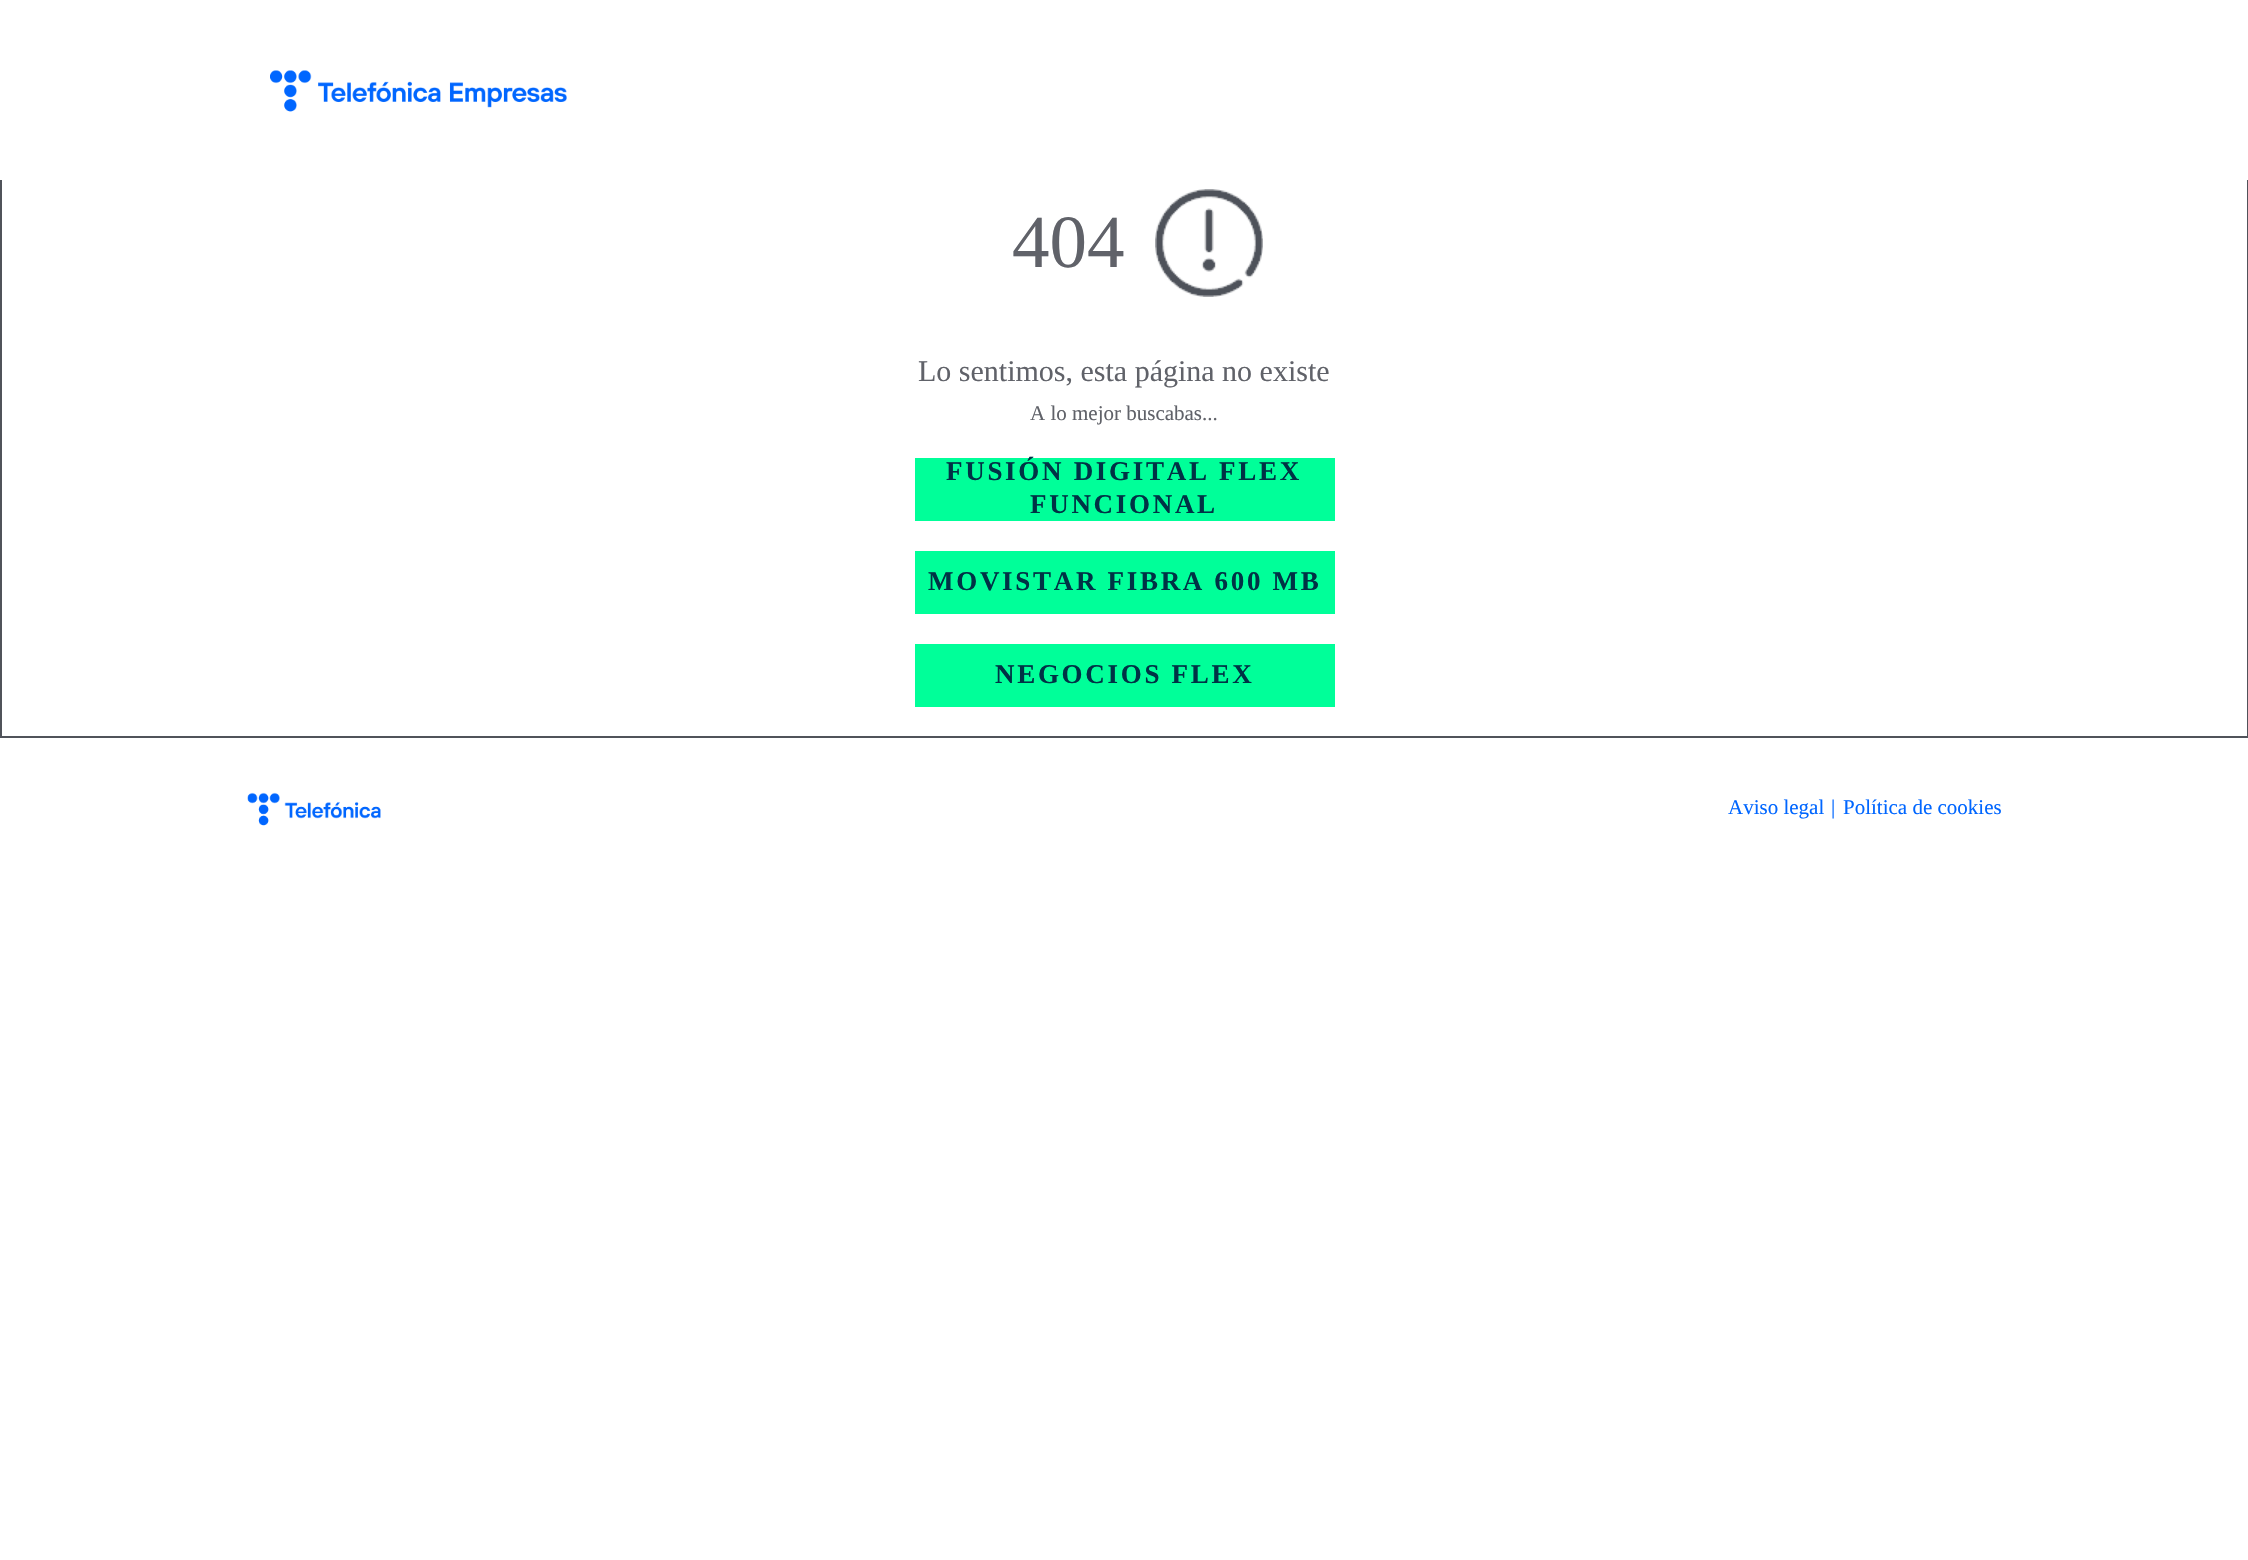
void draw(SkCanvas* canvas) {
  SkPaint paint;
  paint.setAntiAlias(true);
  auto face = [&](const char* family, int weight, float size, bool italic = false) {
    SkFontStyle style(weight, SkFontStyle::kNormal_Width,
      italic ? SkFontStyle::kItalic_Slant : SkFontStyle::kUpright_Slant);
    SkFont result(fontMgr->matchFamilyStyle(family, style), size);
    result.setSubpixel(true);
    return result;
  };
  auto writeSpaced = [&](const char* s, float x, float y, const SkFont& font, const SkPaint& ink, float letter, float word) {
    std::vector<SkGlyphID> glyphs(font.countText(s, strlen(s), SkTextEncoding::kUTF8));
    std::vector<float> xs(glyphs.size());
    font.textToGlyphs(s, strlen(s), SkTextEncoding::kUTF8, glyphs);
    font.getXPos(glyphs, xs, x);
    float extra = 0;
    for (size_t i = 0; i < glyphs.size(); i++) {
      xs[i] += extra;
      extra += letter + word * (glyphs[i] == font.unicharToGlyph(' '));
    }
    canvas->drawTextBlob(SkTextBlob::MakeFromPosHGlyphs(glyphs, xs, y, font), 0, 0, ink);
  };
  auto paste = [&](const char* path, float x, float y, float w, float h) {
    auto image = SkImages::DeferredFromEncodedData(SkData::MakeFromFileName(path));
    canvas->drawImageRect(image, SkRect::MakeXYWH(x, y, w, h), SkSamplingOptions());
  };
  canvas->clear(0xffffffff);
  paint.setStroke(true);
  paint.setStrokeWidth(2);
  paint.setColor(0xff50535a);
  canvas->drawRect(SkRect::MakeXYWH(1, 159, 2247, 578), paint);
  paint.setStroke(false);
  paint.setColor(0xffffffff);
  canvas->drawRect(SkRect::MakeXYWH(0, 158, 2248, 22), paint);
  paste("img/1.png", 270, 70, 297, 42);
  paste("img/2.png", 1155, 189, 108, 108);
  {
    const struct { float x, y, w, h; SkColor color; } items[] = {
      {915, 458, 420, 63, 0xff00ff99},
      {915, 551, 420, 63, 0xff00ff99},
      {915, 644, 420, 63, 0xff00ff99},
    };
    for (auto [x, y, w, h, color] : items) {
      paint.setColor(color);
      canvas->drawRect(SkRect::MakeXYWH(x, y, w, h), paint);
    }
  }
  paste("img/3.png", 247, 792, 134, 34);
  auto f0 = face("Liberation Serif", 400, 75);
  paint.setColor(0xff606269);
  canvas->drawString("404", 1012, 267, f0, paint);
  auto f1 = face("Liberation Serif", 400, 30);
  canvas->drawString("Lo sentimos, esta página no existe", 918, 381, f1, paint);
  auto f2 = face("Liberation Serif", 400, 21);
  canvas->drawString("A lo mejor buscabas...", 1030, 420, f2, paint);
  auto f3 = face("Liberation Serif", 700, 27);
  paint.setColor(0xff003245);
  {
    const struct { const char* s; float x, y; } items[] = {
      {"FUSIÓN DIGITAL FLEX", 946, 480},
      {"FUNCIONAL", 1030, 513},
      {"MOVISTAR FIBRA 600 MB", 928, 590},
      {"NEGOCIOS FLEX", 995, 683},
    };
    for (auto [s, x, y] : items) {
      writeSpaced(s, x, y, f3, paint, 2.7f, 0);
    }
  }
  paint.setColor(0xff0066ff);
  {
    const struct { const char* s; float x, y; } items[] = {
      {"Aviso legal", 1728, 814},
      {"|", 1831, 814},
      {"Política de cookies", 1843, 814},
    };
    for (auto [s, x, y] : items) {
      canvas->drawString(s, x, y, f2, paint);
    }
  }
}
